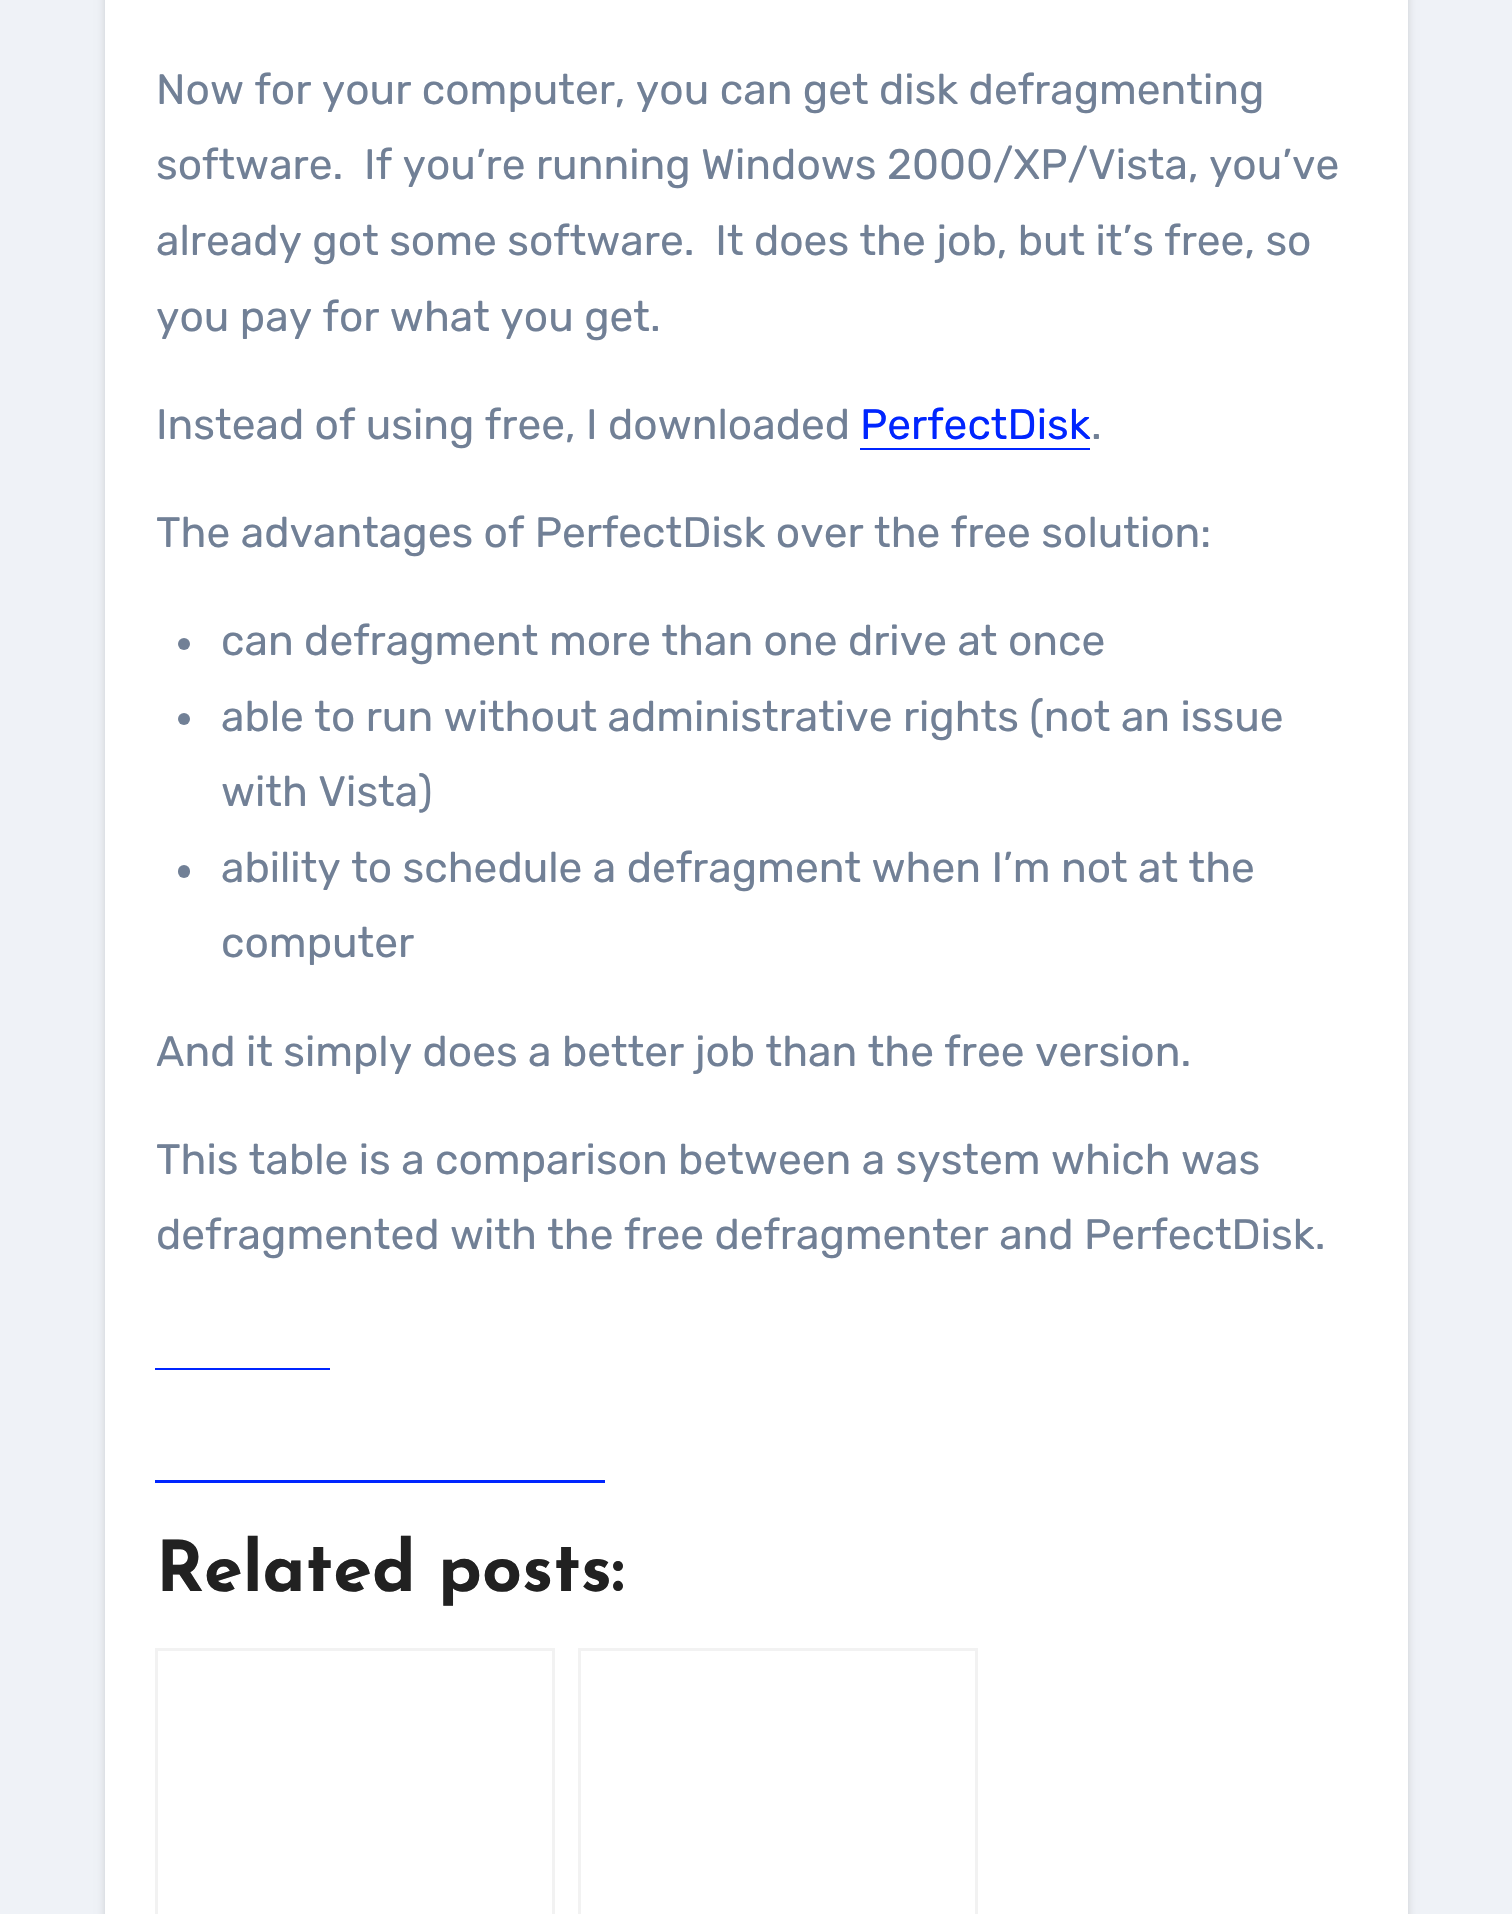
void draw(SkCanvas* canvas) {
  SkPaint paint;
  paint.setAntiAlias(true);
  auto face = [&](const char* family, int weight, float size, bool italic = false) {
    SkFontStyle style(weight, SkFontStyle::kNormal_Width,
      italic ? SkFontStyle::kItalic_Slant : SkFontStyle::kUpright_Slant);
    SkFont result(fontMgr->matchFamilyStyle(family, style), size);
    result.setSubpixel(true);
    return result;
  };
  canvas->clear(0xffeff2f7);
  paint.setColor(0x26000000);
  paint.setMaskFilter(SkMaskFilter::MakeBlur(kNormal_SkBlurStyle, 4));
  canvas->drawRect(SkRect::MakeXYWH(105, -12, 1303, 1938), paint);
  paint.setMaskFilter(nullptr);
  paint.setColor(0xffffffff);
  canvas->drawRect(SkRect::MakeXYWH(105, 0, 1303, 1914), paint);
  paint.setColor(0xff0025ff);
  canvas->drawRect(SkRect::MakeXYWH(860, 448, 230, 2), paint);
  paint.setColor(0xff718096);
  canvas->drawCircle(184, 644, 6, paint);
  canvas->drawCircle(184, 719, 6, paint);
  canvas->drawRoundRect(SkRect::MakeXYWH(178, 865, 12, 13), 6, 6, paint);
  paint.setColor(0xff0025ff);
  canvas->drawRect(SkRect::MakeXYWH(155, 1368, 175, 2), paint);
  canvas->drawRect(SkRect::MakeXYWH(155, 1480, 450, 3), paint);
  paint.setStroke(true);
  paint.setStrokeWidth(3);
  paint.setColor(0xfff2f2f2);
  canvas->drawRect(SkRect::MakeXYWH(156.5f, 1649.5f, 397, 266), paint);
  canvas->drawRect(SkRect::MakeXYWH(579.5f, 1649.5f, 397, 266), paint);
  auto f0 = face("Rubik", 300, 42.5f);
  paint.setStroke(false);
  paint.setColor(0xff718096);
  {
    const struct { const char* s; float x, y; } items[] = {
      {"Now for your computer, you can get disk defragmenting", 156, 104},
      {"software.  If you’re running Windows 2000/XP/Vista, you’ve", 156, 179},
      {"already got some software.  It does the job, but it’s free, so", 156, 255},
      {"you pay for what you get.", 156, 331},
      {"Instead of using free, I downloaded", 156, 439},
    };
    for (auto [s, x, y] : items) {
      canvas->drawString(s, x, y, f0, paint);
    }
  }
  paint.setColor(0xff0025ff);
  canvas->drawString("PerfectDisk", 860, 439, f0, paint);
  paint.setColor(0xff718096);
  {
    const struct { const char* s; float x, y; } items[] = {
      {".", 1091, 439},
      {"The advantages of PerfectDisk over the free solution:", 156, 547},
      {"can defragment more than one drive at once", 221, 655},
      {"able to run without administrative rights (not an issue", 221, 731},
      {"with Vista)", 221, 806},
      {"ability to schedule a defragment when I’m not at the", 221, 882},
      {"computer", 221, 957},
      {"And it simply does a better job than the free version.", 156, 1066},
      {"This table is a comparison between a system which was", 156, 1174},
      {"defragmented with the free defragmenter and PerfectDisk.", 156, 1249},
    };
    for (auto [s, x, y] : items) {
      canvas->drawString(s, x, y, f0, paint);
    }
  }
  auto f1 = face("Josefin Sans", 700, 70);
  paint.setColor(0xff212121);
  canvas->drawString("Related posts:", 156, 1591, f1, paint);
}
